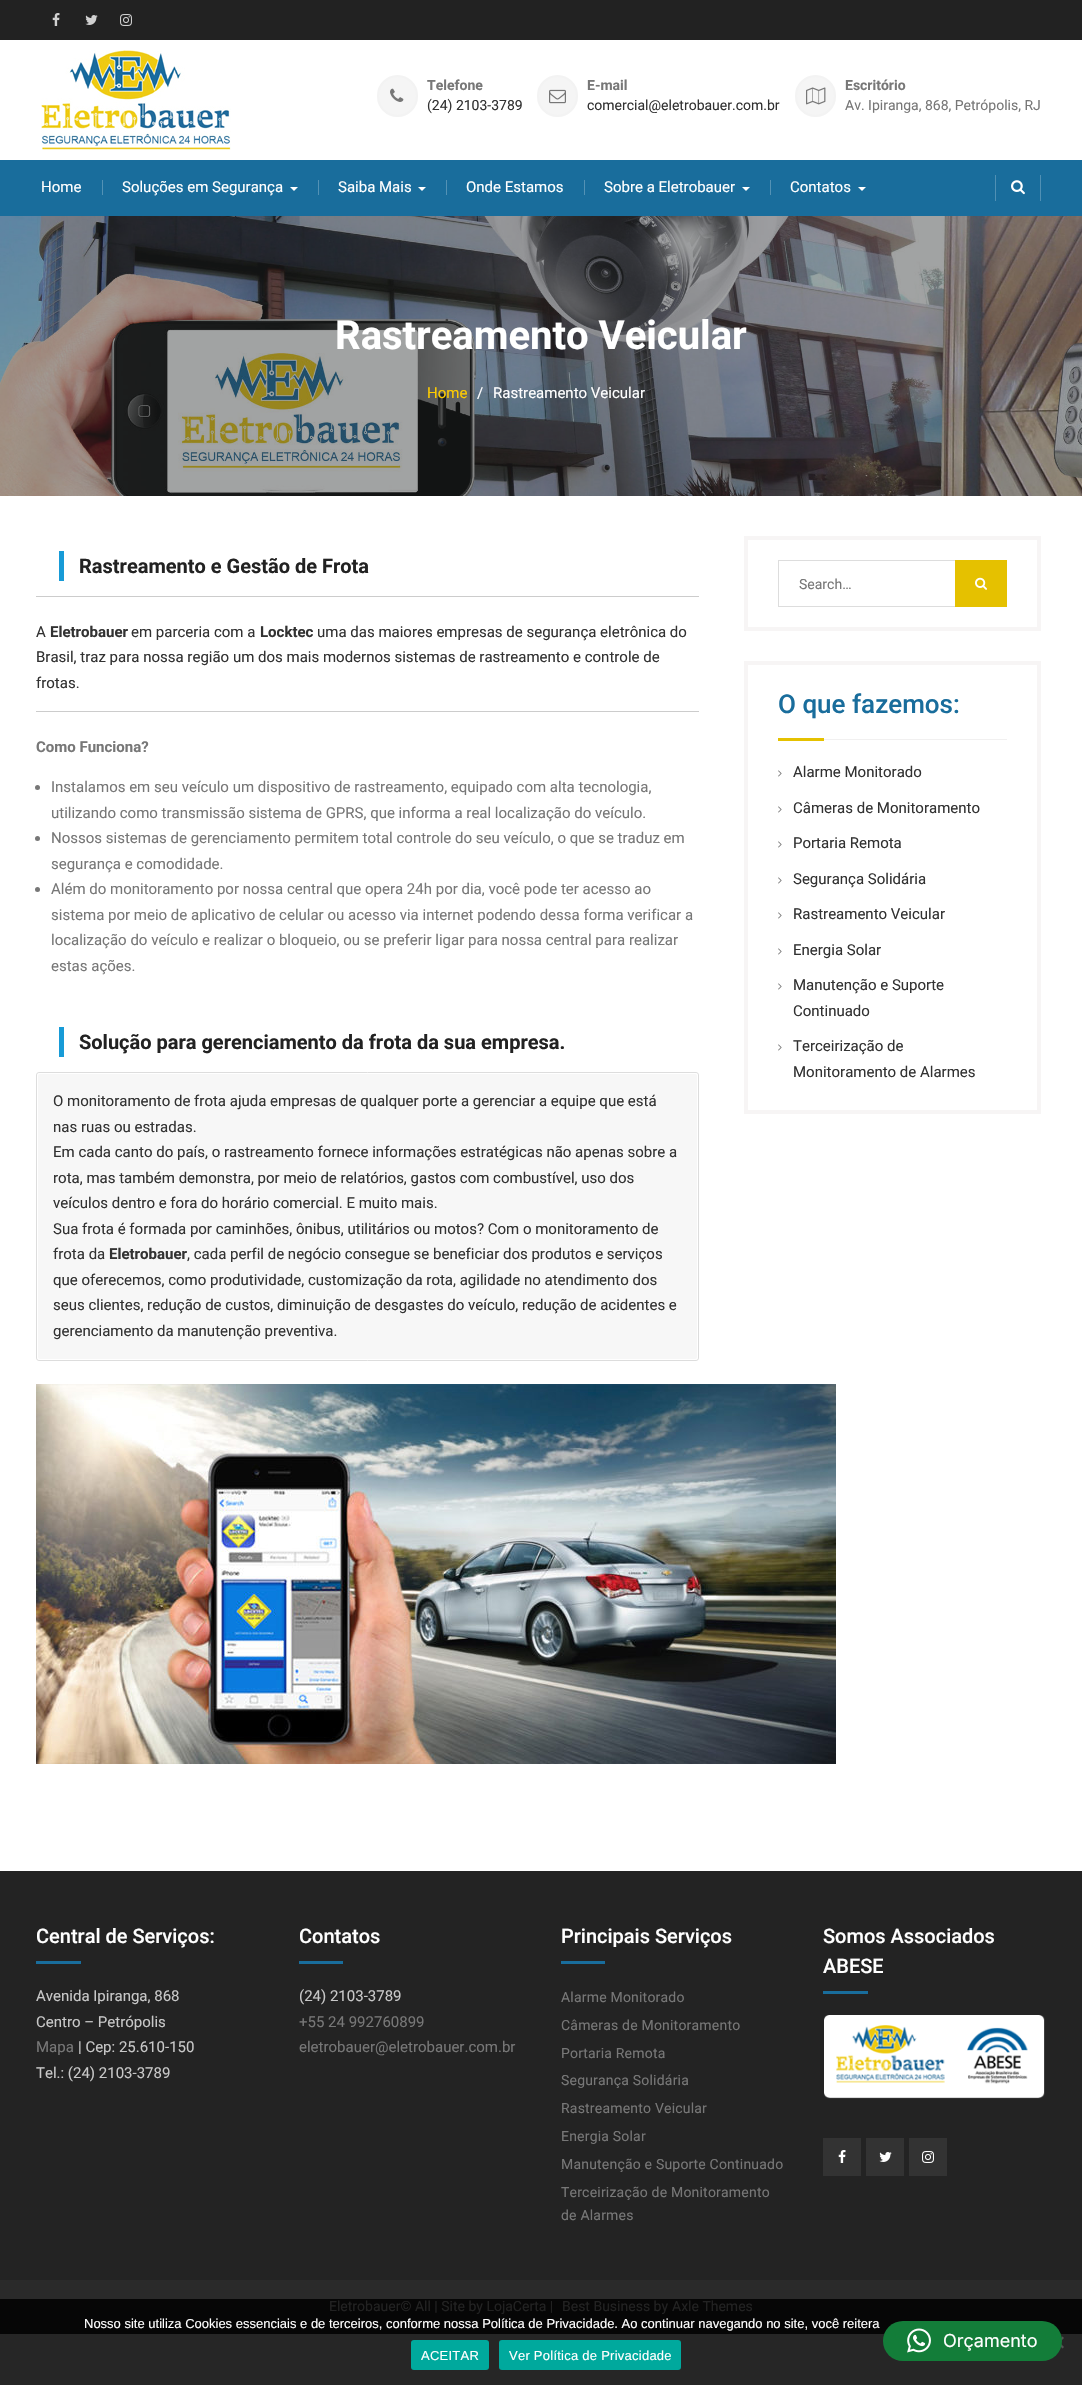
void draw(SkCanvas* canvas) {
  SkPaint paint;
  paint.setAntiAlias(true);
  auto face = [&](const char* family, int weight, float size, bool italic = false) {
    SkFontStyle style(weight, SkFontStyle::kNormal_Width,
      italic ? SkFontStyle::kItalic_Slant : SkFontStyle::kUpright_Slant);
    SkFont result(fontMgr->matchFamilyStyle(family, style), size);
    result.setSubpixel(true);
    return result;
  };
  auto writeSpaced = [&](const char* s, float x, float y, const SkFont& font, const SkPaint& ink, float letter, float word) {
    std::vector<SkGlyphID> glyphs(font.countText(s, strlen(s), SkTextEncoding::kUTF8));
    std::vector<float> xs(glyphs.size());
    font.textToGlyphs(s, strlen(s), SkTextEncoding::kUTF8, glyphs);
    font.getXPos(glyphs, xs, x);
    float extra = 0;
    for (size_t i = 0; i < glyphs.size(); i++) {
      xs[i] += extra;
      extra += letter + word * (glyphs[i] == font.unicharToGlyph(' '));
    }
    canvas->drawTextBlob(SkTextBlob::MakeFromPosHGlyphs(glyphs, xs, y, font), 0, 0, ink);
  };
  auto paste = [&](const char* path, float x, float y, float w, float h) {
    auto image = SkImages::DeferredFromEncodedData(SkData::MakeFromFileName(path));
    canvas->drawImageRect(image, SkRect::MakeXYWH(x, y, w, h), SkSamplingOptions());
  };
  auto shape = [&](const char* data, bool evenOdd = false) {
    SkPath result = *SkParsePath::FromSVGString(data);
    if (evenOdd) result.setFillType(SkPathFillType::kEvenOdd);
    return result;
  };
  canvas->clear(0xffffffff);
  paint.setColor(0xff262626);
  canvas->drawRect(SkRect::MakeXYWH(0, 2334, 1082, 51), paint);
  paint.setColor(0xff222222);
  canvas->drawRect(SkRect::MakeXYWH(0, 0, 1082, 40), paint);
  paste("img/1.png", 52, 13, 8, 13);
  paste("img/2.png", 85, 15, 13, 10);
  paste("img/3.png", 120, 14, 12, 12);
  paste("img/4.png", 41, 50, 190, 100);
  paint.setColor(0xfff5f5f5);
  canvas->drawRoundRect(SkRect::MakeXYWH(378, 76, 39, 40), 19.5f, 19.5f, paint);
  paint.setStroke(true);
  paint.setStrokeWidth(2);
  paint.setColor(0xfff3f3f3);
  canvas->drawRoundRect(SkRect::MakeXYWH(378, 76, 39, 40), 19.5f, 19.5f, paint);
  paste("img/5.png", 390, 88, 14, 14);
  paint.setStroke(false);
  paint.setColor(0xfff5f5f5);
  canvas->drawRoundRect(SkRect::MakeXYWH(538, 76, 39, 40), 19.5f, 19.5f, paint);
  paint.setStroke(true);
  paint.setColor(0xfff3f3f3);
  canvas->drawRoundRect(SkRect::MakeXYWH(538, 76, 39, 40), 19.5f, 19.5f, paint);
  paste("img/6.png", 549, 89, 17, 15);
  paint.setStroke(false);
  paint.setColor(0xfff5f5f5);
  canvas->drawRoundRect(SkRect::MakeXYWH(796, 76, 39, 40), 19.5f, 19.5f, paint);
  paint.setStroke(true);
  paint.setColor(0xfff3f3f3);
  canvas->drawRoundRect(SkRect::MakeXYWH(796, 76, 39, 40), 19.5f, 19.5f, paint);
  paste("img/7.png", 806, 87, 20, 18);
  paint.setStroke(false);
  paint.setColor(0xff196d9c);
  canvas->drawRect(SkRect::MakeXYWH(0, 160, 1082, 56), paint);
  paint.setColor(0xff5392b5);
  canvas->drawRect(SkRect::MakeXYWH(102, 180, 1, 15), paint);
  paint.setColor(0xffffffff);
  canvas->drawPath(shape("M290 187H298L294 191Z"), paint);
  paint.setColor(0xff5392b5);
  canvas->drawRect(SkRect::MakeXYWH(318, 180, 1, 15), paint);
  paint.setColor(0xffffffff);
  canvas->drawPath(shape("M418 187H426L422 191Z"), paint);
  paint.setColor(0xff5392b5);
  canvas->drawRect(SkRect::MakeXYWH(446, 180, 1, 15), paint);
  canvas->drawRect(SkRect::MakeXYWH(584, 180, 1, 15), paint);
  paint.setColor(0xffffffff);
  canvas->drawPath(shape("M742 187H750L746 191Z"), paint);
  paint.setColor(0xff5392b5);
  canvas->drawRect(SkRect::MakeXYWH(770, 180, 1, 15), paint);
  paint.setColor(0xffffffff);
  canvas->drawPath(shape("M858 187H866L862 191Z"), paint);
  paint.setColor(0xff5090b4);
  canvas->drawRect(SkRect::MakeXYWH(1040, 175, 1, 26), paint);
  canvas->drawRect(SkRect::MakeXYWH(995, 175, 1, 26), paint);
  paste("img/8.png", 1011, 180, 14, 15);
  paste("img/9.png", 0, 216, 1082, 280);
  {
    const struct { float x, y, w, h; SkColor color; } items[] = {
      {59, 551, 5, 30, 0xff179bd7},
      {36, 596, 663, 1, 0xffcccccc},
      {36, 711, 663, 1, 0xffcccccc},
    };
    for (auto [x, y, w, h, color] : items) {
      paint.setColor(color);
      canvas->drawRect(SkRect::MakeXYWH(x, y, w, h), paint);
    }
  }
  paint.setColor(0xff777777);
  canvas->drawCircle(37.5f, 787.5f, 2.5f, paint);
  canvas->drawCircle(37.5f, 838.5f, 2.5f, paint);
  canvas->drawCircle(37.5f, 889.5f, 2.5f, paint);
  paint.setColor(0xff179bd7);
  canvas->drawRect(SkRect::MakeXYWH(59, 1027, 5, 30), paint);
  paint.setStroke(true);
  paint.setStrokeWidth(1);
  paint.setColor(0xffdddddd);
  canvas->drawRoundRect(SkRect::MakeXYWH(36.5f, 1072.5f, 662, 288), 2.5f, 2.5f, paint);
  paint.setStroke(false);
  paint.setColor(0xfff7f7f7);
  canvas->drawRoundRect(SkRect::MakeXYWH(37.5f, 1073.5f, 660, 286), 2.5f, 2.5f, paint);
  paint.setStroke(true);
  paint.setColor(0xffffffff);
  canvas->drawRoundRect(SkRect::MakeXYWH(37.5f, 1073.5f, 660, 286), 2.5f, 2.5f, paint);
  paste("img/10.png", 36, 1384, 800, 380);
  paint.setStrokeWidth(4);
  paint.setColor(0xfff7f5f5);
  canvas->drawRect(SkRect::MakeXYWH(746, 538, 293, 91), paint);
  paint.setStrokeWidth(1);
  paint.setColor(0xffdddddd);
  canvas->drawRect(SkRect::MakeXYWH(778.5f, 560.5f, 228, 46), paint);
  paint.setStroke(false);
  paint.setColor(0xffe5c100);
  canvas->drawRect(SkRect::MakeXYWH(955, 560, 52, 47), paint);
  paste("img/11.png", 975, 577, 12, 13);
  paint.setStroke(true);
  paint.setStrokeWidth(4);
  paint.setColor(0xfff7f5f5);
  canvas->drawRect(SkRect::MakeXYWH(746, 663, 293, 449), paint);
  paint.setStroke(false);
  paint.setColor(0xfff1f0f0);
  canvas->drawRect(SkRect::MakeXYWH(824, 739, 183, 1), paint);
  paint.setColor(0xffe5c100);
  canvas->drawRect(SkRect::MakeXYWH(778, 738, 46, 3), paint);
  paste("img/12.png", 778, 770, 4, 7);
  paste("img/12.png", 778, 806, 4, 7);
  paste("img/12.png", 778, 841, 4, 7);
  paste("img/12.png", 778, 877, 4, 7);
  paste("img/12.png", 778, 912, 4, 7);
  paste("img/12.png", 778, 948, 4, 7);
  paste("img/12.png", 778, 983, 4, 7);
  paste("img/12.png", 778, 1044, 4, 7);
  {
    const struct { float x, y, w, h; SkColor color; } items[] = {
      {0, 1871, 1082, 409, 0xff232323},
      {36, 1961, 45, 3, 0xff196d9c},
      {299, 1961, 44, 3, 0xff196d9c},
      {561, 1961, 44, 3, 0xff196d9c},
      {823, 1991, 45, 3, 0xff196d9c},
    };
    for (auto [x, y, w, h, color] : items) {
      paint.setColor(color);
      canvas->drawRect(SkRect::MakeXYWH(x, y, w, h), paint);
    }
  }
  paste("img/13.png", 824, 2015, 221, 84);
  paint.setColor(0xff333333);
  canvas->drawRect(SkRect::MakeXYWH(823, 2138, 38, 38), paint);
  paste("img/14.png", 838, 2150, 8, 13);
  canvas->drawRect(SkRect::MakeXYWH(866, 2138, 38, 38), paint);
  paste("img/15.png", 879, 2152, 13, 10);
  canvas->drawRect(SkRect::MakeXYWH(909, 2138, 38, 38), paint);
  paste("img/16.png", 922, 2151, 12, 12);
  paint.setColor(0xff2a2a2a);
  canvas->drawRect(SkRect::MakeXYWH(0, 2280, 1082, 19), paint);
  paint.setColor(0xff060606);
  canvas->drawRect(SkRect::MakeXYWH(0, 2299, 1082, 35), paint);
  paint.setColor(0xff535353);
  canvas->drawPath(shape("M1062.5 2336.5L1064 2338L1053.5 2348.5L1052 2347Z"), paint);
  canvas->drawPath(shape("M1052 2338L1053.5 2336.5L1064 2347L1062.5 2348.5Z"), paint);
  paint.setColor(0xff00a99d);
  canvas->drawRoundRect(SkRect::MakeXYWH(411, 2340, 78, 30), 3, 3, paint);
  canvas->drawRoundRect(SkRect::MakeXYWH(499, 2340, 182, 30), 3, 3, paint);
  paint.setColor(0xff137d39);
  canvas->drawRoundRect(SkRect::MakeXYWH(883, 2321, 179, 40), 20, 20, paint);
  paste("img/17.png", 907, 2328, 24, 25);
  auto f0 = face("Roboto", 700, 14);
  paint.setColor(0xff777777);
  canvas->drawString("Telefone", 427, 90, f0, paint);
  auto f1 = face("Roboto", 400, 14);
  paint.setColor(0xff323232);
  canvas->drawString("(24) 2103-3789", 427, 110, f1, paint);
  paint.setColor(0xff777777);
  canvas->drawString("E-mail", 587, 90, f0, paint);
  paint.setColor(0xff323232);
  canvas->drawString("comercial@eletrobauer.com.br", 587, 110, f1, paint);
  paint.setColor(0xff777777);
  canvas->drawString("Escritório", 845, 90, f0, paint);
  canvas->drawString("Av. Ipiranga, 868, Petrópolis, RJ", 845, 110, f1, paint);
  auto f2 = face("Roboto", 400, 15);
  paint.setColor(0xffffffff);
  {
    const struct { const char* s; float x, y; } items[] = {
      {"Home", 41, 192},
      {"Soluções em Segurança", 122, 192},
      {"Saiba Mais", 338, 192},
      {"Onde Estamos", 466, 192},
      {"Sobre a Eletrobauer", 604, 192},
      {"Contatos", 790, 192},
    };
    for (auto [s, x, y] : items) {
      canvas->drawString(s, x, y, f2, paint);
    }
  }
  auto f3 = face("Roboto", 700, 40);
  canvas->drawString("Rastreamento Veicular", 335, 349, f3, paint);
  paint.setColor(0xffffcc00);
  canvas->drawString("Home", 427, 398, f2, paint);
  paint.setColor(0xffffffff);
  canvas->drawString("/", 477, 398, f2, paint);
  canvas->drawString("Rastreamento Veicular", 493, 398, f2, paint);
  auto f4 = face("Roboto", 700, 20);
  paint.setColor(0xff222222);
  canvas->drawString("Rastreamento e Gestão de Frota", 79, 573, f4, paint);
  paint.setColor(0xff323232);
  canvas->drawString("A", 36, 637, f2, paint);
  auto f5 = face("Roboto", 700, 15);
  canvas->drawString("Eletrobauer", 50, 637, f5, paint);
  canvas->drawString("em parceria com a", 131, 637, f2, paint);
  canvas->drawString("Locktec", 260, 637, f5, paint);
  {
    const struct { const char* s; float x, y; } items[] = {
      {"uma das maiores empresas de segurança eletrônica do", 317, 637},
      {"Brasil, traz para nossa região um dos mais modernos sistemas de rastreamento e controle de", 36, 662},
      {"frotas.", 36, 688},
    };
    for (auto [s, x, y] : items) {
      canvas->drawString(s, x, y, f2, paint);
    }
  }
  paint.setColor(0xff777777);
  canvas->drawString("Como Funciona?", 36, 752, f5, paint);
  {
    const struct { const char* s; float x, y; } items[] = {
      {"Instalamos em seu veículo um dispositivo de rastreamento, equipado com alta tecnologia,", 51, 792},
      {"utilizando como transmissão sistema de GPRS, que informa a real localização do veículo.", 51, 818},
      {"Nossos sistemas de gerenciamento permitem total controle do seu veículo, o que se traduz em", 51, 843},
      {"segurança e comodidade.", 51, 869},
      {"Além do monitoramento por nossa central que opera 24h por dia, você pode ter acesso ao", 51, 894},
      {"sistema por meio de aplicativo de celular ou acesso via internet podendo dessa forma verificar a", 51, 920},
      {"localização do veículo e realizar o bloqueio, ou se preferir ligar para nossa central para realizar", 51, 945},
      {"estas ações.", 51, 971},
    };
    for (auto [s, x, y] : items) {
      canvas->drawString(s, x, y, f2, paint);
    }
  }
  paint.setColor(0xff222222);
  canvas->drawString("Solução para gerenciamento da frota da sua empresa.", 79, 1049, f4, paint);
  paint.setColor(0xff323232);
  {
    const struct { const char* s; float x, y; } items[] = {
      {"O monitoramento de frota ajuda empresas de qualquer porte a gerenciar a equipe que está", 53, 1106},
      {"nas ruas ou estradas.", 53, 1132},
      {"Em cada canto do país, o rastreamento fornece informações estratégicas não apenas sobre a", 53, 1157},
      {"rota, mas também demonstra, por meio de relatórios, gastos com combustível, uso dos", 53, 1183},
      {"veículos dentro e fora do horário comercial. E muito mais.", 53, 1208},
      {"Sua frota é formada por caminhões, ônibus, utilitários ou motos? Com o monitoramento de", 53, 1234},
      {"frota da", 53, 1259},
    };
    for (auto [s, x, y] : items) {
      canvas->drawString(s, x, y, f2, paint);
    }
  }
  canvas->drawString("Eletrobauer", 109, 1259, f5, paint);
  {
    const struct { const char* s; float x, y; } items[] = {
      {", cada perfil de negócio consegue se beneficiar dos produtos e serviços", 187, 1259},
      {"que oferecemos, como produtividade, customização da rota, agilidade no atendimento dos", 53, 1285},
      {"seus clientes, redução de custos, diminuição de desgastes do veículo, redução de acidentes e", 53, 1310},
      {"gerenciamento da manutenção preventiva.", 53, 1336},
    };
    for (auto [s, x, y] : items) {
      canvas->drawString(s, x, y, f2, paint);
    }
  }
  paint.setColor(0xff777777);
  canvas->drawString("Search…", 799, 589, f1, paint);
  auto f6 = face("Roboto", 500, 26);
  paint.setColor(0xff196d9c);
  canvas->drawString("O que fazemos:", 778, 713, f6, paint);
  paint.setColor(0xff323232);
  {
    const struct { const char* s; float x, y; } items[] = {
      {"Alarme Monitorado", 793, 777},
      {"Câmeras de Monitoramento", 793, 813},
      {"Portaria Remota", 793, 848},
      {"Segurança Solidária", 793, 884},
      {"Rastreamento Veicular", 793, 919},
      {"Energia Solar", 793, 955},
      {"Manutenção e Suporte", 793, 990},
      {"Continuado", 793, 1016},
      {"Terceirização de", 793, 1051},
      {"Monitoramento de Alarmes", 793, 1077},
    };
    for (auto [s, x, y] : items) {
      canvas->drawString(s, x, y, f2, paint);
    }
  }
  auto f7 = face("Roboto", 500, 20);
  paint.setColor(0xffffffff);
  canvas->drawString("Central de Serviços:", 36, 1943, f7, paint);
  paint.setColor(0xffc8c8c8);
  canvas->drawString("Avenida Ipiranga, 868", 36, 2001, f2, paint);
  canvas->drawString("Centro – Petrópolis", 36, 2027, f2, paint);
  paint.setColor(0xff777777);
  canvas->drawString("Mapa", 36, 2052, f2, paint);
  paint.setColor(0xffc8c8c8);
  canvas->drawString("| Cep: 25.610-150", 78, 2052, f2, paint);
  canvas->drawString("Tel.: (24) 2103-3789", 36, 2078, f2, paint);
  paint.setColor(0xffffffff);
  canvas->drawString("Contatos", 299, 1943, f7, paint);
  paint.setColor(0xffc8c8c8);
  canvas->drawString("(24) 2103-3789", 299, 2001, f2, paint);
  paint.setColor(0xff777777);
  canvas->drawString("+55 24 992760899", 299, 2027, f2, paint);
  canvas->drawString("eletrobauer@eletrobauer.com.br", 299, 2052, f2, paint);
  paint.setColor(0xffffffff);
  canvas->drawString("Principais Serviços", 561, 1943, f7, paint);
  paint.setColor(0xff777777);
  {
    const struct { const char* s; float x, y; } items[] = {
      {"Alarme Monitorado", 561, 2002},
      {"Câmeras de Monitoramento", 561, 2030},
      {"Portaria Remota", 561, 2058},
      {"Segurança Solidária", 561, 2085},
      {"Rastreamento Veicular", 561, 2113},
      {"Energia Solar", 561, 2141},
      {"Manutenção e Suporte Continuado", 561, 2169},
      {"Terceirização de Monitoramento", 561, 2197},
      {"de Alarmes", 561, 2220},
    };
    for (auto [s, x, y] : items) {
      writeSpaced(s, x, y, f1, paint, 0.2f, 0);
    }
  }
  paint.setColor(0xffffffff);
  canvas->drawString("Somos Associados", 823, 1943, f7, paint);
  canvas->drawString("ABESE", 823, 1973, f7, paint);
  paint.setColor(0xff222222);
  {
    const struct { const char* s; float x, y; } items[] = {
      {"Eletrobauer© All | Site by LojaCerta |", 329, 2311},
      {"Best Business by", 562, 2311},
      {"Axle Themes", 672, 2311},
    };
    for (auto [s, x, y] : items) {
      canvas->drawString(s, x, y, f1, paint);
    }
  }
  auto f8 = face("Liberation Sans", 400, 13);
  paint.setColor(0xffffffff);
  canvas->drawString("Nosso site utiliza Cookies essenciais e de terceiros, conforme nossa Política de Privacidade. Ao continuar navegando no site, você reitera", 84, 2328, f8, paint);
  writeSpaced("ACEITAR", 421, 2360, f8, paint, 0.25f, 0);
  writeSpaced("Ver Política de Privacidade", 509, 2360, f8, paint, 0.25f, 0);
  auto f9 = face("Inter", 400, 18);
  canvas->drawString("Orçamento", 943, 2347, f9, paint);
}
